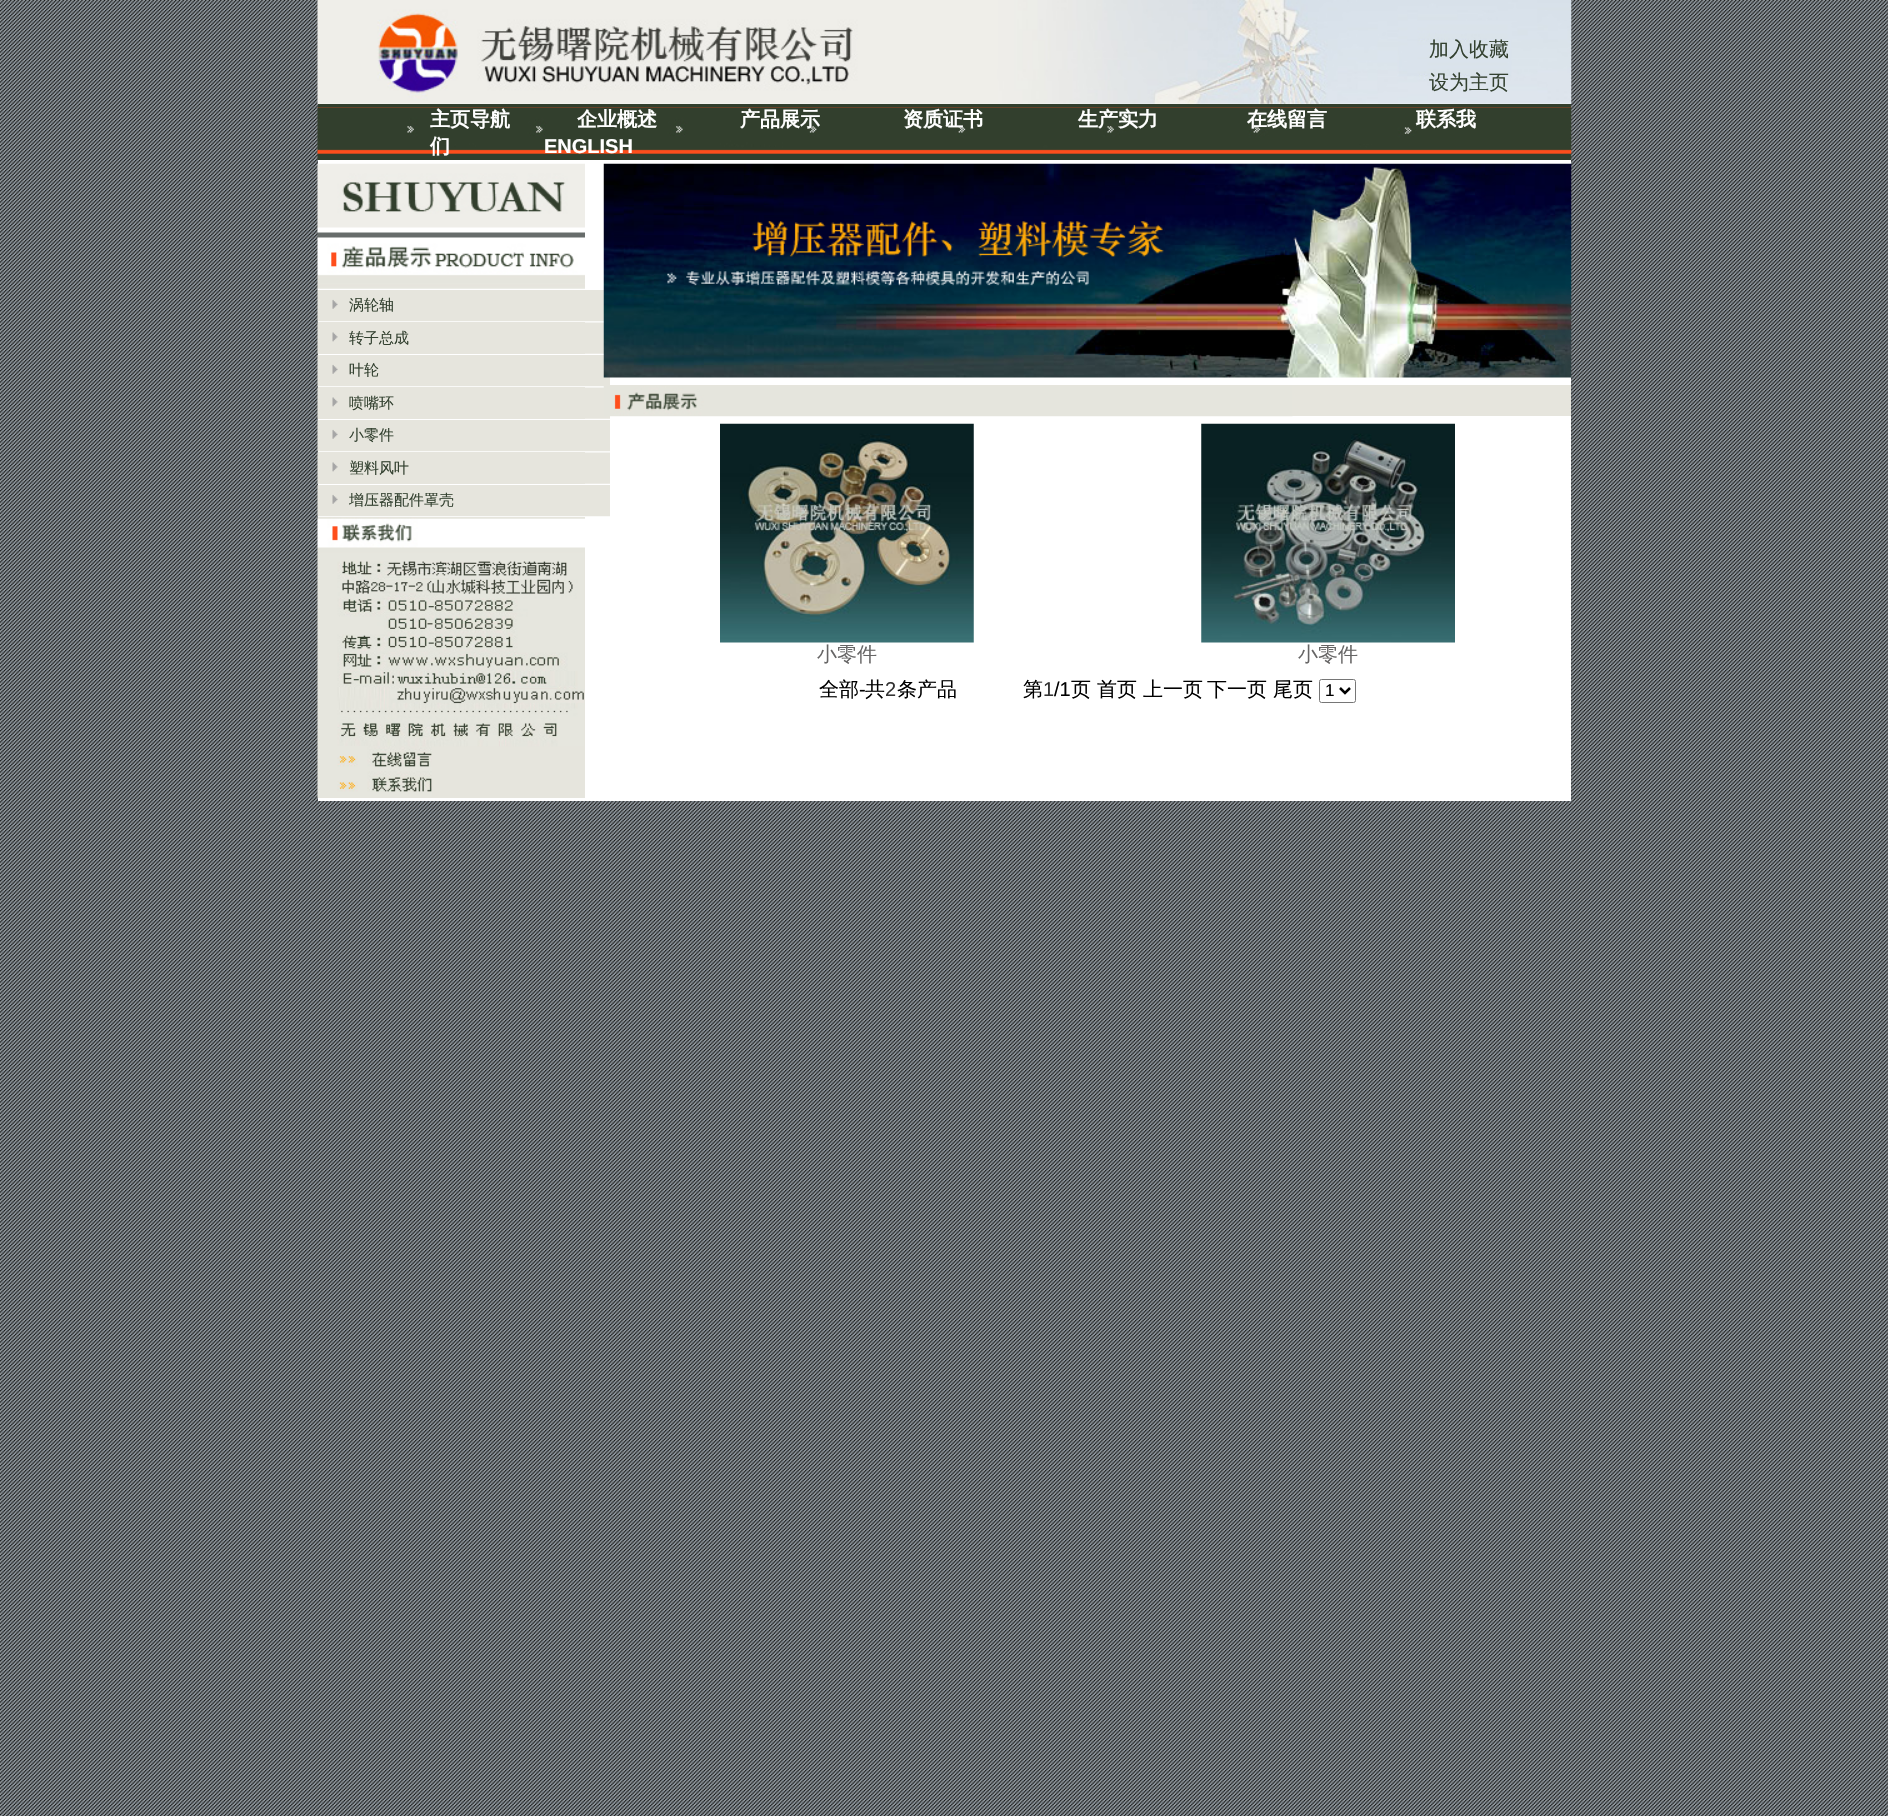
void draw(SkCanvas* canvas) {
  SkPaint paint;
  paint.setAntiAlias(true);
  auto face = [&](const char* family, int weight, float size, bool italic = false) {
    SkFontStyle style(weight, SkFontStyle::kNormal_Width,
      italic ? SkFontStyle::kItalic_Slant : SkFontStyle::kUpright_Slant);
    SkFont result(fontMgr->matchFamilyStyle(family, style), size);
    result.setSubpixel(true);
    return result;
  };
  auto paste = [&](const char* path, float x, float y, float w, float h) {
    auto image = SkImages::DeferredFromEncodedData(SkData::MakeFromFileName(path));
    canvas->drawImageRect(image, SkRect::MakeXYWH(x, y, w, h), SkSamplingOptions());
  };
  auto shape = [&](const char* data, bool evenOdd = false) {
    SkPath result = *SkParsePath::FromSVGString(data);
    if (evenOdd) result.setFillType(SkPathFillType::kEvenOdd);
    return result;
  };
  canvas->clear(0xffffffff);
  paste("img/1.png", 0, 0, 1888, 1816);
  paint.setColor(0xffffffff);
  canvas->drawRect(SkRect::MakeXYWH(318, 103, 1253, 698), paint);
  paste("img/2.png", 317, 0, 1255, 104);
  paint.setColor(0xff323f2d);
  canvas->drawRect(SkRect::MakeXYWH(318, 104, 1253, 4), paint);
  paste("img/3.png", 317, 107, 1255, 53);
  paint.setColor(0xffe6e5dd);
  canvas->drawRect(SkRect::MakeXYWH(318, 322, 267, 476), paint);
  paste("img/4.png", 317, 163, 268, 127);
  paste("img/5.png", 317, 290, 287, 32);
  paste("img/6.png", 317, 322, 287, 32);
  paint.setColor(0xffffffff);
  canvas->drawRect(SkRect::MakeXYWH(318, 354, 267, 1), paint);
  canvas->drawRect(SkRect::MakeXYWH(318, 386, 267, 1), paint);
  paste("img/7.png", 317, 355, 293, 32);
  paste("img/8.png", 317, 387, 293, 32);
  canvas->drawRect(SkRect::MakeXYWH(318, 419, 267, 1), paint);
  canvas->drawRect(SkRect::MakeXYWH(318, 451, 267, 1), paint);
  paste("img/9.png", 317, 420, 293, 32);
  paste("img/10.png", 317, 452, 293, 32);
  canvas->drawRect(SkRect::MakeXYWH(318, 484, 267, 1), paint);
  canvas->drawRect(SkRect::MakeXYWH(318, 516, 267, 1), paint);
  paste("img/11.png", 317, 485, 293, 32);
  paste("img/12.png", 317, 517, 268, 36);
  paste("img/13.png", 317, 552, 267, 195);
  paste("img/14.png", 317, 746, 115, 26);
  paste("img/15.png", 317, 771, 115, 27);
  paste("img/16.png", 603, 163, 969, 215);
  paint.setColor(0xffe6e5dd);
  canvas->drawRect(SkRect::MakeXYWH(610, 385, 961, 31), paint);
  paste("img/17.png", 603, 386, 690, 31);
  paste("img/18.png", 720, 423, 254, 220);
  paste("img/19.png", 1201, 423, 254, 220);
  paint.setStroke(true);
  paint.setStrokeWidth(1);
  paint.setColor(0xff767676);
  canvas->drawRoundRect(SkRect::MakeXYWH(1319.5f, 679.5f, 36, 23), 2, 2, paint);
  paint.setStrokeWidth(2.5f);
  paint.setColor(0xff000000);
  canvas->drawPath(shape("M1340 688L1345 693L1350 688"), paint);
  auto f0 = face("WenQuanYi Zen Hei", 500, 20);
  paint.setStroke(false);
  paint.setColor(0xff334130);
  canvas->drawString("加入收藏", 1429, 56, f0, paint);
  canvas->drawString("设为主页", 1429, 89, f0, paint);
  auto f1 = face("WenQuanYi Zen Hei", 700, 20);
  paint.setColor(0xffffffff);
  {
    const struct { const char* s; float x, y; } items[] = {
      {"主页导航", 430, 126},
      {"企业概述", 577, 126},
      {"产品展示", 740, 126},
      {"资质证书", 903, 126},
      {"生产实力", 1078, 126},
      {"在线留言", 1247, 126},
      {"联系我", 1416, 126},
      {"们", 430, 153},
    };
    for (auto [s, x, y] : items) {
      canvas->drawString(s, x, y, f1, paint);
    }
  }
  auto f2 = face("Liberation Sans", 700, 20);
  canvas->drawString("ENGLISH", 544, 153, f2, paint);
  auto f3 = face("WenQuanYi Zen Hei", 500, 15);
  paint.setColor(0xff334130);
  {
    const struct { const char* s; float x, y; } items[] = {
      {"涡轮轴", 349, 310},
      {"转子总成", 349, 343},
      {"叶轮", 349, 375},
      {"喷嘴环", 349, 408},
      {"小零件", 349, 440},
      {"塑料风叶", 349, 473},
      {"增压器配件罩壳", 349, 505},
    };
    for (auto [s, x, y] : items) {
      canvas->drawString(s, x, y, f3, paint);
    }
  }
  paint.setColor(0xff666565);
  canvas->drawString("小零件", 817, 661, f0, paint);
  canvas->drawString("小零件", 1298, 661, f0, paint);
  paint.setColor(0xff000000);
  canvas->drawString("全部", 819, 696, f0, paint);
  auto f4 = face("Liberation Sans", 400, 20);
  canvas->drawString("-", 859, 696, f4, paint);
  canvas->drawString("共", 865, 696, f0, paint);
  paint.setColor(0xff333333);
  canvas->drawString("2", 885, 696, f4, paint);
  paint.setColor(0xff000000);
  canvas->drawString("条产品", 897, 696, f0, paint);
  canvas->drawString("第", 1023, 696, f0, paint);
  paint.setColor(0xff333333);
  canvas->drawString("1", 1043, 696, f4, paint);
  paint.setColor(0xff000000);
  canvas->drawString("/1", 1054, 696, f4, paint);
  canvas->drawString("页 首页 上一页", 1071, 696, f0, paint);
  canvas->drawString("下一页 尾页", 1207, 696, f0, paint);
  auto f5 = face("Liberation Sans", 400, 17);
  canvas->drawString("1", 1325, 696, f5, paint);
}
